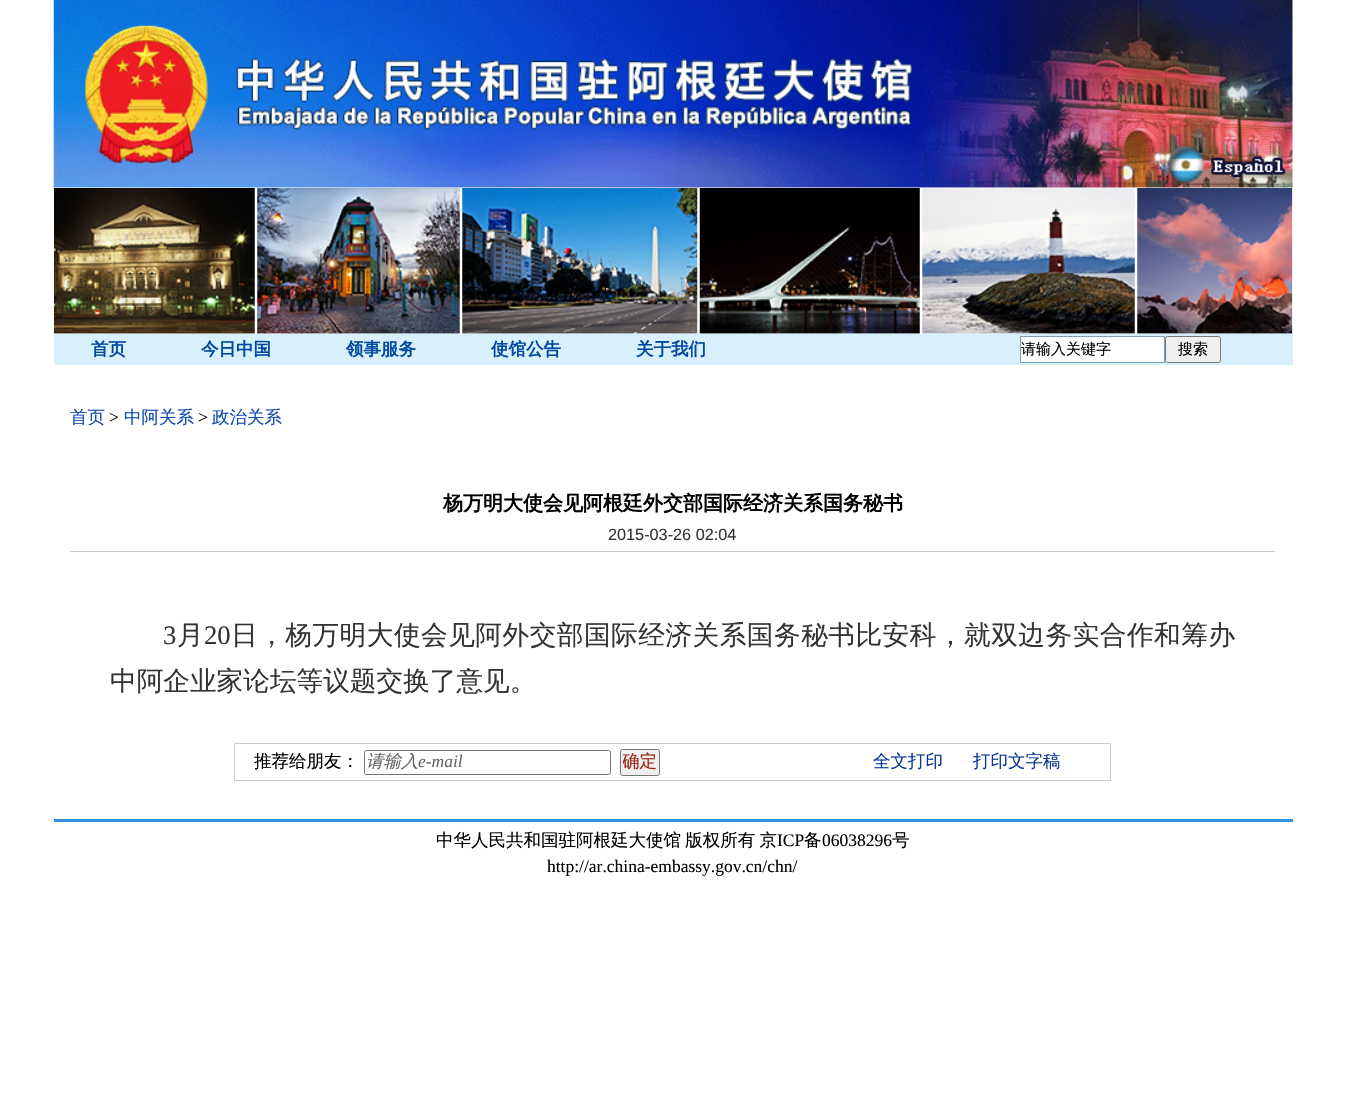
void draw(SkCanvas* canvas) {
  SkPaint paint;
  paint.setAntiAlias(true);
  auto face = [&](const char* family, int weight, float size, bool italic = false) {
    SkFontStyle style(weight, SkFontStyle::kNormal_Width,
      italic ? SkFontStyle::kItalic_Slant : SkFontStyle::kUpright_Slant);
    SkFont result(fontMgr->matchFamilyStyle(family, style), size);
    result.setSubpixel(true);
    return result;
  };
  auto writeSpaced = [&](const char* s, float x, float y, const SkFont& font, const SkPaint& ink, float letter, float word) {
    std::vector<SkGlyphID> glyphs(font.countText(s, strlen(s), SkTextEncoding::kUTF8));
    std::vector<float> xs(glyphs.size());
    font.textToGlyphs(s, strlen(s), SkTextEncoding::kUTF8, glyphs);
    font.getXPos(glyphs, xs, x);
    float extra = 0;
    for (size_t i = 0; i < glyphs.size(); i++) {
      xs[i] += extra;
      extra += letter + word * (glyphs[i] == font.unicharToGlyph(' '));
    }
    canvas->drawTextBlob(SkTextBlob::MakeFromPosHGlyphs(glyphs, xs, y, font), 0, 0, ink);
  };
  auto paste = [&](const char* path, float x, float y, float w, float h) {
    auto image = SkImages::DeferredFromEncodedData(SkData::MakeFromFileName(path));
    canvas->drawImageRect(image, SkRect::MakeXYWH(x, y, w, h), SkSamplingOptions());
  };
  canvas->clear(0xffffffff);
  paste("img/1.png", 53, 0, 1240, 188);
  paste("img/2.png", 53, 187, 1240, 147);
  paint.setColor(0xffd8f0fc);
  canvas->drawRect(SkRect::MakeXYWH(54, 334, 1239, 31), paint);
  paint.setColor(0xffffffff);
  canvas->drawRect(SkRect::MakeXYWH(1020.5f, 336.5f, 144, 26), paint);
  paint.setStroke(true);
  paint.setStrokeWidth(1);
  paint.setColor(0xff7f9db9);
  canvas->drawRect(SkRect::MakeXYWH(1020.5f, 336.5f, 144, 26), paint);
  paint.setStroke(false);
  paint.setColor(0xffefefef);
  canvas->drawRoundRect(SkRect::MakeXYWH(1165.5f, 336.5f, 55, 26), 2, 2, paint);
  paint.setStroke(true);
  paint.setColor(0xff767676);
  canvas->drawRoundRect(SkRect::MakeXYWH(1165.5f, 336.5f, 55, 26), 2, 2, paint);
  paint.setStroke(false);
  paint.setColor(0xffcccccc);
  canvas->drawRect(SkRect::MakeXYWH(70, 551, 1205, 1), paint);
  paint.setStroke(true);
  canvas->drawRect(SkRect::MakeXYWH(234.5f, 743.5f, 876, 37), paint);
  paint.setColor(0xff767676);
  canvas->drawRoundRect(SkRect::MakeXYWH(364.5f, 750.5f, 246, 24), 2, 2, paint);
  paint.setStroke(false);
  paint.setColor(0xffefefef);
  canvas->drawRoundRect(SkRect::MakeXYWH(620.5f, 749.5f, 39, 26), 2, 2, paint);
  paint.setStroke(true);
  paint.setColor(0xff767676);
  canvas->drawRoundRect(SkRect::MakeXYWH(620.5f, 749.5f, 39, 26), 2, 2, paint);
  paint.setStroke(false);
  paint.setColor(0xff3291e0);
  canvas->drawRect(SkRect::MakeXYWH(54, 819, 1239, 3), paint);
  auto f0 = face("WenQuanYi Zen Hei", 700, 17.5f);
  paint.setColor(0xff0148a0);
  {
    const struct { const char* s; float x, y; } items[] = {
      {"首页", 91, 355},
      {"今日中国", 201, 355},
      {"领事服务", 346, 355},
      {"使馆公告", 491, 355},
      {"关于我们", 636, 355},
    };
    for (auto [s, x, y] : items) {
      canvas->drawString(s, x, y, f0, paint);
    }
  }
  auto f1 = face("WenQuanYi Zen Hei", 500, 15);
  paint.setColor(0xff000000);
  canvas->drawString("请输入关键字", 1021, 354, f1, paint);
  canvas->drawString("搜索", 1178, 354, f1, paint);
  auto f2 = face("WenQuanYi Zen Hei", 500, 17.5f);
  paint.setColor(0xff0f47b4);
  canvas->drawString("首页", 70, 423, f2, paint);
  auto f3 = face("Liberation Serif", 400, 17.5f);
  paint.setColor(0xff000000);
  canvas->drawString(">", 109, 423, f3, paint);
  paint.setColor(0xff0f47b4);
  canvas->drawString("中阿关系", 124, 423, f2, paint);
  paint.setColor(0xff000000);
  canvas->drawString(">", 198, 423, f3, paint);
  paint.setColor(0xff0f47b4);
  canvas->drawString("政治关系", 212, 423, f2, paint);
  auto f4 = face("WenQuanYi Zen Hei", 700, 20);
  paint.setColor(0xff000000);
  canvas->drawString("杨万明大使会见阿根廷外交部国际经济关系国务秘书", 443, 510, f4, paint);
  auto f5 = face("Liberation Sans", 400, 16.25f);
  paint.setColor(0xff333333);
  canvas->drawString("2015-03-26 02:04", 608, 540, f5, paint);
  auto f6 = face("Liberation Serif", 400, 26.65f);
  canvas->drawString("3", 163, 644, f6, paint);
  auto f7 = face("WenQuanYi Zen Hei", 500, 26.65f);
  canvas->drawString("月", 177, 644, f7, paint);
  canvas->drawString("20", 204, 644, f6, paint);
  writeSpaced("日，杨万明大使会见阿外交部国际经济关系国务秘书比安科，就双边务实合作和筹办", 231, 644, f7, paint, 0.5f, 0);
  canvas->drawString("中阿企业家论坛等议题交换了意见。", 110, 690, f7, paint);
  paint.setColor(0xff000000);
  canvas->drawString("推荐给朋友：", 254, 767, f2, paint);
  canvas->save();
  canvas->clipRect(SkRect::MakeXYWH(366, 753, 243, 20));
  auto f8 = face("WenQuanYi Zen Hei", 500, 17.5f, true);
  paint.setColor(0xff666666);
  canvas->drawString("请输入", 366, 767, f8, paint);
  canvas->restore();
  auto f9 = face("Liberation Serif", 400, 17.5f, true);
  canvas->drawString("e-mail", 418, 767, f9, paint);
  canvas->save();
  canvas->clipRect(SkRect::MakeXYWH(623, 751, 35, 23));
  paint.setColor(0xff9a230e);
  canvas->drawString("确定", 622, 767, f2, paint);
  canvas->restore();
  paint.setColor(0xff083793);
  canvas->drawString("全文打印", 873, 767, f2, paint);
  canvas->drawString("打印文字稿", 973, 767, f2, paint);
  paint.setColor(0xff000000);
  writeSpaced("中华人民共和国驻阿根廷大使馆 版权所有 京", 436, 846, f2, paint, 0, -1);
  canvas->drawString("ICP", 777, 846, f3, paint);
  canvas->drawString("备", 804, 846, f2, paint);
  canvas->drawString("06038296", 822, 846, f3, paint);
  canvas->drawString("号", 892, 846, f2, paint);
  canvas->drawString("http://ar.china-embassy.gov.cn/chn/", 547, 872, f3, paint);
}
